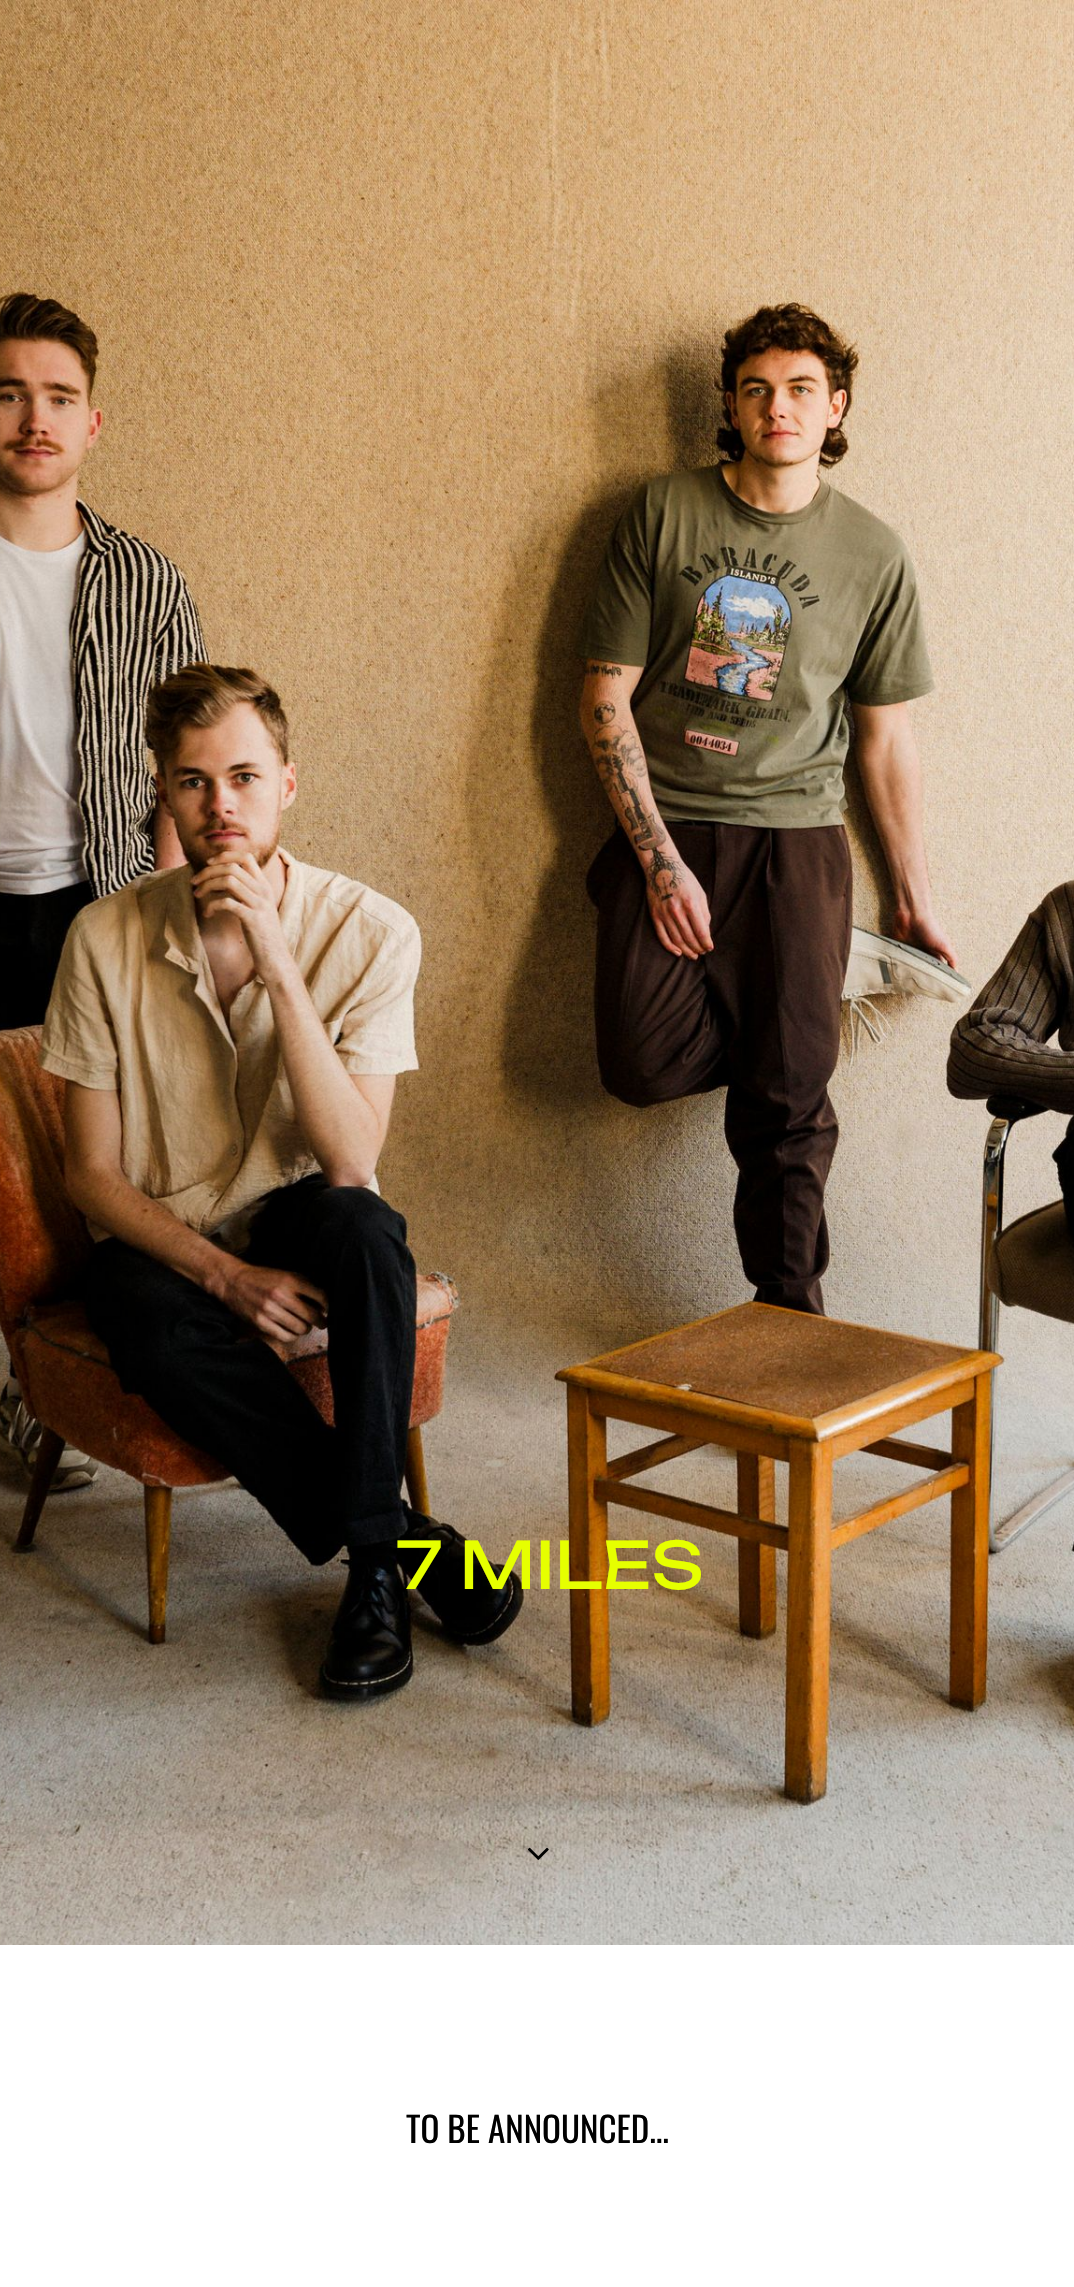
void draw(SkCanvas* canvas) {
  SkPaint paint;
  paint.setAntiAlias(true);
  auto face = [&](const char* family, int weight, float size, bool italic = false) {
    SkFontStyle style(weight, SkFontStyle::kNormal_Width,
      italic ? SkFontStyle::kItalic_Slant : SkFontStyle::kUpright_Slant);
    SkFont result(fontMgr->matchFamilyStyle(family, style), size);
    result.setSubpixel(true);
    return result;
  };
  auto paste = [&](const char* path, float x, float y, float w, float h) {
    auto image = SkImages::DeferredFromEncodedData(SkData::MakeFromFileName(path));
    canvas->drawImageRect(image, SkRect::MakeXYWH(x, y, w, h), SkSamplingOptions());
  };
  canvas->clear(0xffffffff);
  paste("img/1.png", 0, 0, 1074, 1945);
  paste("img/2.png", 527, 1847, 22, 13);
  auto f0 = face("Unbounded", 400, 64.5f);
  paint.setColor(0xffe6ff00);
  canvas->drawString("7 MILES", 397, 1589, f0, paint);
  auto f1 = face("Oswald", 400, 35);
  paint.setColor(0xff000000);
  canvas->drawString("TO BE ANNOUNCED...", 406, 2143, f1, paint);
}
